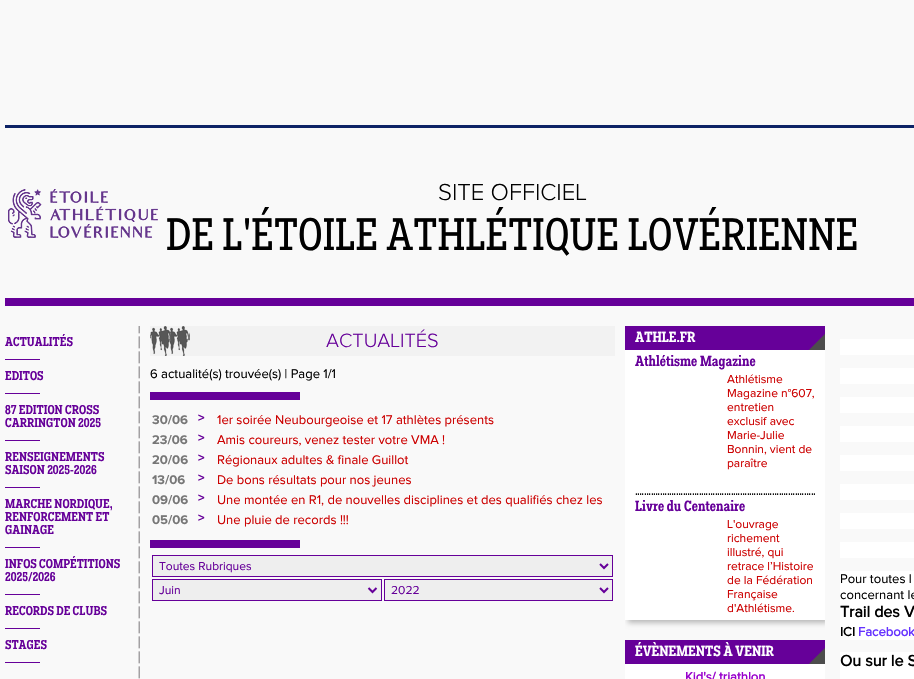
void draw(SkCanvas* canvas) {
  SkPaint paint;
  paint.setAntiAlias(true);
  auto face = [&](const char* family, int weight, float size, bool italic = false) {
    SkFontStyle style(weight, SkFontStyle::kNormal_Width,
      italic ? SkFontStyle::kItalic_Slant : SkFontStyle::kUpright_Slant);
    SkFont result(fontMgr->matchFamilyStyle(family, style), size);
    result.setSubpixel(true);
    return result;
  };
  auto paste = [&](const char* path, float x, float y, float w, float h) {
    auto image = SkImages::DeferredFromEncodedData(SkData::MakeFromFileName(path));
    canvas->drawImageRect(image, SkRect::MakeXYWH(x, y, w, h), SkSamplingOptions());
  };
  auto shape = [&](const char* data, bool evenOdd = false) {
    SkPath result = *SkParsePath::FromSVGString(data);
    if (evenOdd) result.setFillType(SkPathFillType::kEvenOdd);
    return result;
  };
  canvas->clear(0xfff9f9f9);
  paint.setColor(0xff0d2366);
  canvas->drawRect(SkRect::MakeXYWH(5, 125, 909, 3), paint);
  paste("img/1.png", 8, 189, 150, 49);
  paint.setColor(0xff660099);
  canvas->drawRect(SkRect::MakeXYWH(5, 298, 909, 8), paint);
  paste("img/2.png", 138, 326, 2, 353);
  {
    const struct { float x, y, w, h; SkColor color; } items[] = {
      {5, 359, 35, 1, 0xff660099},
      {5, 393, 35, 1, 0xff660099},
      {5, 440, 35, 1, 0xff660099},
      {5, 487, 35, 1, 0xff660099},
      {5, 547, 35, 1, 0xff660099},
      {5, 594, 35, 1, 0xff660099},
      {5, 628, 35, 1, 0xff660099},
      {5, 662, 35, 1, 0xff660099},
      {150, 326, 465, 30, 0xfff2f2f2},
    };
    for (auto [x, y, w, h, color] : items) {
      paint.setColor(color);
      canvas->drawRect(SkRect::MakeXYWH(x, y, w, h), paint);
    }
  }
  paste("img/3.png", 150, 326, 40, 30);
  paint.setColor(0xff660099);
  canvas->drawRect(SkRect::MakeXYWH(150, 392, 150, 8), paint);
  canvas->drawRect(SkRect::MakeXYWH(150, 540, 150, 8), paint);
  paint.setColor(0xffeeeeee);
  canvas->drawRect(SkRect::MakeXYWH(152.5f, 555.5f, 460, 21), paint);
  paint.setStroke(true);
  paint.setStrokeWidth(1);
  paint.setColor(0xff660099);
  canvas->drawRect(SkRect::MakeXYWH(152.5f, 555.5f, 460, 21), paint);
  paint.setStrokeWidth(2);
  canvas->drawPath(shape("M600 564L604 568L608 564"), paint);
  paint.setStroke(false);
  paint.setColor(0xffeeeeee);
  canvas->drawRect(SkRect::MakeXYWH(152.5f, 579.5f, 229, 21), paint);
  paint.setStroke(true);
  paint.setStrokeWidth(1);
  paint.setColor(0xff660099);
  canvas->drawRect(SkRect::MakeXYWH(152.5f, 579.5f, 229, 21), paint);
  paint.setStrokeWidth(2);
  canvas->drawPath(shape("M368.5 588L372.5 592L376.5 588"), paint);
  paint.setStroke(false);
  paint.setColor(0xffeeeeee);
  canvas->drawRect(SkRect::MakeXYWH(384.5f, 579.5f, 228, 21), paint);
  paint.setStroke(true);
  paint.setStrokeWidth(1);
  paint.setColor(0xff660099);
  canvas->drawRect(SkRect::MakeXYWH(384.5f, 579.5f, 228, 21), paint);
  paint.setStrokeWidth(2);
  canvas->drawPath(shape("M600 588L604 592L608 588"), paint);
  canvas->save();
  canvas->clipRect(SkRect::MakeXYWH(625, 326, 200, 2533));
  paint.setStroke(false);
  paint.setColor(0x40000000);
  paint.setMaskFilter(SkMaskFilter::MakeBlur(kNormal_SkBlurStyle, 2.5f));
  canvas->drawRect(SkRect::MakeXYWH(628, 329, 200, 294), paint);
  paint.setMaskFilter(nullptr);
  canvas->restore();
  paint.setColor(0xffffffff);
  canvas->drawRect(SkRect::MakeXYWH(625, 350, 200, 270), paint);
  paint.setColor(0xff660099);
  canvas->drawRect(SkRect::MakeXYWH(625, 326, 200, 24), paint);
  paste("img/4.png", 809, 334, 16, 16);
  paste("img/5.png", 635, 493, 180, 2);
  paint.setColor(0xffffffff);
  canvas->drawRect(SkRect::MakeXYWH(625, 664, 200, 15), paint);
  paint.setColor(0xff660099);
  canvas->drawRect(SkRect::MakeXYWH(625, 640, 200, 24), paint);
  paste("img/4.png", 809, 648, 16, 16);
  {
    const struct { float x, y, w, h; SkColor color; } items[] = {
      {840, 339, 74, 16, 0xffffffff},
      {840, 368, 74, 16, 0xffffffff},
      {840, 397, 74, 16, 0xffffffff},
      {840, 426, 74, 16, 0xffffffff},
      {840, 455, 74, 16, 0xffffffff},
      {840, 484, 74, 16, 0xffffffff},
      {840, 513, 74, 16, 0xffffffff},
      {840, 542, 74, 16, 0xffffffff},
      {840, 571, 74, 69, 0xffffffff},
      {840, 652, 74, 27, 0xffffffff},
    };
    for (auto [x, y, w, h, color] : items) {
      paint.setColor(color);
      canvas->drawRect(SkRect::MakeXYWH(x, y, w, h), paint);
    }
  }
  auto f0 = face("Proxima Nova", 300, 24);
  paint.setColor(0xff000000);
  canvas->drawString("SITE OFFICIEL", 438, 200, f0, paint);
  auto f1 = face("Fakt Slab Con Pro", 400, 46);
  canvas->drawString("DE L'ÉTOILE ATHLÉTIQUE LOVÉRIENNE", 166, 250, f1, paint);
  auto f2 = face("Fakt Slab Con Pro", 600, 13);
  paint.setColor(0xff660099);
  {
    const struct { const char* s; float x, y; } items[] = {
      {"ACTUALITÉS", 5, 346},
      {"EDITOS", 5, 380},
      {"87 EDITION CROSS", 5, 414},
      {"CARRINGTON 2025", 5, 427},
      {"RENSEIGNEMENTS", 5, 461},
      {"SAISON 2025-2026", 5, 474},
      {"MARCHE NORDIQUE,", 5, 508},
      {"RENFORCEMENT ET", 5, 521},
      {"GAINAGE", 5, 534},
      {"INFOS COMPÉTITIONS", 5, 568},
      {"2025/2026", 5, 581},
      {"RECORDS DE CLUBS", 5, 615},
      {"STAGES", 5, 649},
    };
    for (auto [s, x, y] : items) {
      canvas->drawString(s, x, y, f2, paint);
    }
  }
  auto f3 = face("Proxima Nova", 300, 20);
  canvas->drawString("ACTUALITÉS", 326, 347, f3, paint);
  auto f4 = face("Proxima Nova", 400, 13);
  paint.setColor(0xff000000);
  canvas->drawString("6 actualité(s) trouvée(s) | Page 1/1", 150, 378, f4, paint);
  auto f5 = face("Proxima Nova", 700, 13);
  paint.setColor(0xff777777);
  canvas->drawString("30/06", 152, 424, f5, paint);
  paint.setColor(0xff660099);
  canvas->drawString(">", 198, 422, f5, paint);
  paint.setColor(0xffcc0000);
  canvas->drawString("1er soirée Neubourgeoise et 17 athlètes présents", 217, 424, f4, paint);
  paint.setColor(0xff777777);
  canvas->drawString("23/06", 152, 444, f5, paint);
  paint.setColor(0xff660099);
  canvas->drawString(">", 198, 442, f5, paint);
  paint.setColor(0xffcc0000);
  canvas->drawString("Amis coureurs, venez tester votre VMA !", 217, 444, f4, paint);
  paint.setColor(0xff777777);
  canvas->drawString("20/06", 152, 464, f5, paint);
  paint.setColor(0xff660099);
  canvas->drawString(">", 198, 462, f5, paint);
  paint.setColor(0xffcc0000);
  canvas->drawString("Régionaux adultes & finale Guillot", 217, 464, f4, paint);
  paint.setColor(0xff777777);
  canvas->drawString("13/06", 152, 484, f5, paint);
  paint.setColor(0xff660099);
  canvas->drawString(">", 198, 482, f5, paint);
  paint.setColor(0xffcc0000);
  canvas->drawString("De bons résultats pour nos jeunes", 217, 484, f4, paint);
  paint.setColor(0xff777777);
  canvas->drawString("09/06", 152, 504, f5, paint);
  paint.setColor(0xff660099);
  canvas->drawString(">", 198, 502, f5, paint);
  paint.setColor(0xffcc0000);
  canvas->drawString("Une montée en R1, de nouvelles disciplines et des qualifiés chez les", 217, 504, f4, paint);
  paint.setColor(0xff777777);
  canvas->drawString("05/06", 152, 524, f5, paint);
  paint.setColor(0xff660099);
  canvas->drawString(">", 198, 522, f5, paint);
  paint.setColor(0xffcc0000);
  canvas->drawString("Une pluie de records !!!", 217, 524, f4, paint);
  auto f6 = face("Proxima Nova", 400, 12);
  paint.setColor(0xff660099);
  {
    const struct { const char* s; float x, y; } items[] = {
      {"Toutes Rubriques", 159, 570},
      {"Juin", 159, 594},
      {"2022", 391, 594},
    };
    for (auto [s, x, y] : items) {
      canvas->drawString(s, x, y, f6, paint);
    }
  }
  auto f7 = face("Fakt Slab Con Pro", 600, 15);
  paint.setColor(0xffffffff);
  canvas->drawString("ATHLE.FR", 635, 342, f7, paint);
  paint.setColor(0xff660099);
  canvas->drawString("Athlétisme Magazine", 635, 366, f7, paint);
  paint.setColor(0xffcc0000);
  {
    const struct { const char* s; float x, y; } items[] = {
      {"Athlétisme", 727, 383},
      {"Magazine n°607,", 727, 397},
      {"entretien", 727, 411},
      {"exclusif avec", 727, 425},
      {"Marie-Julie", 727, 439},
      {"Bonnin, vient de", 727, 453},
      {"paraître", 727, 467},
    };
    for (auto [s, x, y] : items) {
      canvas->drawString(s, x, y, f6, paint);
    }
  }
  paint.setColor(0xff660099);
  canvas->drawString("Livre du Centenaire", 635, 511, f7, paint);
  paint.setColor(0xffcc0000);
  {
    const struct { const char* s; float x, y; } items[] = {
      {"L'ouvrage", 727, 528},
      {"richement", 727, 542},
      {"illustré, qui", 727, 556},
      {"retrace l’Histoire", 727, 570},
      {"de la Fédération", 727, 584},
      {"Française", 727, 598},
      {"d'Athlétisme.", 727, 612},
    };
    for (auto [s, x, y] : items) {
      canvas->drawString(s, x, y, f6, paint);
    }
  }
  paint.setColor(0xffffffff);
  canvas->drawString("ÉVÈNEMENTS À VENIR", 635, 656, f7, paint);
  auto f8 = face("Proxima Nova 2", 700, 13);
  paint.setColor(0xff9900cc);
  canvas->drawString("Kid's/ triathlon", 685, 681, f8, paint);
  paint.setColor(0xff000000);
  canvas->drawString("Pour toutes l", 840, 583, f4, paint);
  canvas->drawString("concernant le", 840, 599, f4, paint);
  auto f9 = face("Proxima Nova 2", 700, 16);
  canvas->drawString("Trail des V", 840, 617, f9, paint);
  canvas->drawString("ICI", 840, 636, f8, paint);
  paint.setColor(0xff6633ff);
  canvas->drawString("Facebook", 858, 636, f8, paint);
  paint.setColor(0xff000000);
  canvas->drawString("Ou sur le S", 840, 666, f9, paint);
}
